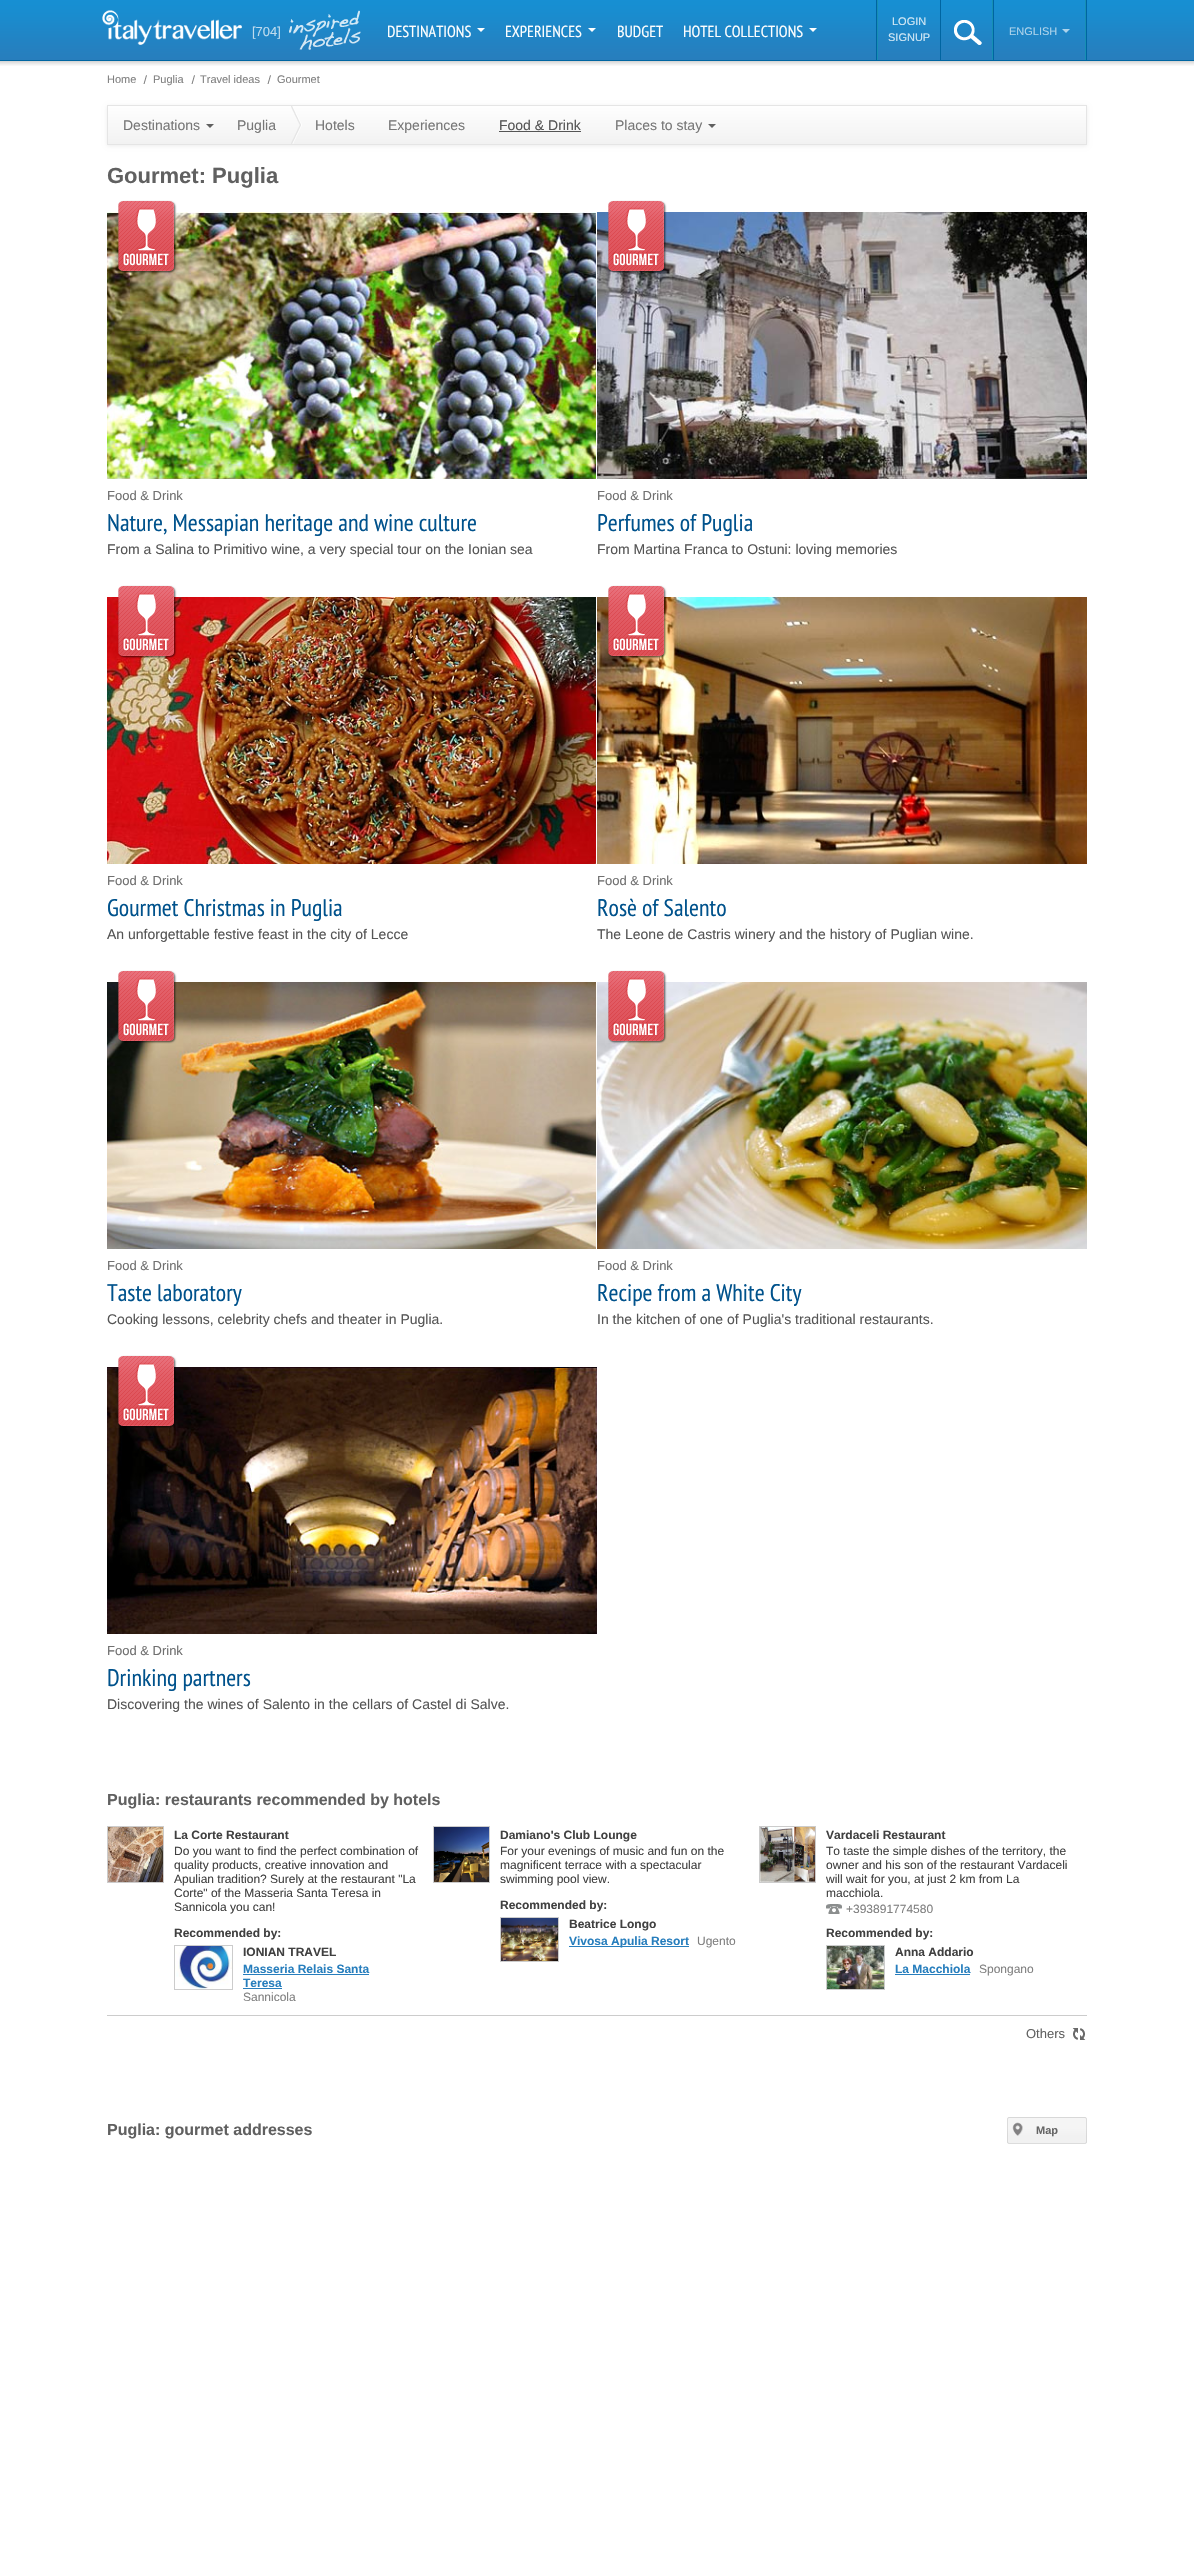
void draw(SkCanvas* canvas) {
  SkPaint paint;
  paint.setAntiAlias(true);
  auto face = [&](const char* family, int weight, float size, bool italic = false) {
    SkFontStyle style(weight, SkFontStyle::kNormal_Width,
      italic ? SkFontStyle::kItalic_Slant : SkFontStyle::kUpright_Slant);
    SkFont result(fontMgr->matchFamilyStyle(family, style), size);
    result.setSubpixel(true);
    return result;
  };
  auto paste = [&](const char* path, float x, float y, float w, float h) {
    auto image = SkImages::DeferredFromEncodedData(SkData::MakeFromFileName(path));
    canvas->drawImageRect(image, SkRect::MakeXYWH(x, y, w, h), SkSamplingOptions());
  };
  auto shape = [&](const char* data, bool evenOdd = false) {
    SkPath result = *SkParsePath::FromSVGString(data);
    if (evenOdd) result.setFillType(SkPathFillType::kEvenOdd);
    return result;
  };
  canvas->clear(0xffffffff);
  paste("img/1.png", 0, 0, 1194, 66);
  paste("img/2.png", 102, 10, 140, 35);
  paste("img/3.png", 289, 10, 72, 40);
  paint.setColor(0xffffffff);
  canvas->drawPath(shape("M477 28H485L481 32Z"), paint);
  canvas->drawPath(shape("M588 28H596L592 32Z"), paint);
  canvas->drawPath(shape("M809 28H817L813 32Z"), paint);
  {
    const struct { float x, y, w, h; SkColor color; } items[] = {
      {876, 0, 1, 60, 0xff0065a1},
      {940, 0, 1, 60, 0xff0065a1},
      {877, 0, 1, 60, 0xff178fb3},
      {993, 0, 1, 60, 0xff0065a1},
      {992, 0, 1, 60, 0xff178fb3},
    };
    for (auto [x, y, w, h, color] : items) {
      paint.setColor(color);
      canvas->drawRect(SkRect::MakeXYWH(x, y, w, h), paint);
    }
  }
  paste("img/4.png", 954, 20, 28, 25);
  paint.setColor(0xff0065a1);
  canvas->drawRect(SkRect::MakeXYWH(1086, 0, 1, 60), paint);
  paint.setColor(0xff178fb3);
  canvas->drawRect(SkRect::MakeXYWH(1085, 0, 1, 60), paint);
  paint.setColor(0xffadd3eb);
  canvas->drawPath(shape("M1062 29H1070L1066 33Z"), paint);
  paste("img/5.png", 143, 75, 4, 9);
  paste("img/5.png", 191, 75, 4, 9);
  paste("img/5.png", 267, 75, 4, 9);
  paint.setColor(0x12000000);
  paint.setMaskFilter(SkMaskFilter::MakeBlur(kNormal_SkBlurStyle, 2));
  canvas->drawRect(SkRect::MakeXYWH(107, 106, 980, 40), paint);
  paint.setMaskFilter(nullptr);
  {
    const SkColor colors[] = {0xfffefefe, 0xfff2f2f2};
    const float stops[] = {0, 1};
    const SkPoint ends[] = {{597, 106}, {597, 144}};
    paint.setShader(SkGradientShader::MakeLinear(ends, colors, stops, 2, SkTileMode::kClamp));
    paint.setAlpha(255);
  }
  canvas->drawRect(SkRect::MakeXYWH(108, 106, 978, 38), paint);
  paint.setStroke(true);
  paint.setStrokeWidth(1);
  paint.setShader(nullptr);
  paint.setColor(0xffe5e5e5);
  canvas->drawRect(SkRect::MakeXYWH(107.5f, 105.5f, 979, 39), paint);
  paint.setStroke(false);
  paint.setColor(0xff606060);
  canvas->drawPath(shape("M206 124H214L210 128Z"), paint);
  paste("img/6.png", 291, 106, 11, 38);
  paint.setColor(0xff555555);
  canvas->drawRect(SkRect::MakeXYWH(499, 131, 82, 1), paint);
  paint.setColor(0xff606060);
  canvas->drawPath(shape("M708 124H716L712 128Z"), paint);
  paste("img/7.png", 107, 212, 489, 267);
  paste("img/8.png", 118, 200, 59, 74);
  paste("img/9.png", 597, 212, 490, 267);
  paste("img/10.png", 608, 200, 59, 74);
  paste("img/11.png", 107, 597, 489, 267);
  paste("img/12.png", 118, 585, 59, 74);
  paste("img/13.png", 597, 597, 490, 267);
  paste("img/14.png", 608, 585, 59, 74);
  paste("img/15.png", 107, 982, 489, 267);
  paste("img/16.png", 118, 970, 59, 74);
  paste("img/17.png", 597, 982, 490, 267);
  paste("img/18.png", 608, 970, 59, 74);
  paste("img/19.png", 107, 1367, 490, 267);
  paste("img/20.png", 118, 1355, 59, 73);
  paint.setStroke(true);
  paint.setColor(0xffcccccc);
  canvas->drawRect(SkRect::MakeXYWH(107.5f, 1826.5f, 56, 56), paint);
  paste("img/21.png", 108, 1827, 55, 55);
  canvas->drawRect(SkRect::MakeXYWH(174.5f, 1945.5f, 58, 44), paint);
  paste("img/22.png", 175, 1946, 57, 43);
  paint.setStroke(false);
  paint.setColor(0xff277ebd);
  canvas->drawRect(SkRect::MakeXYWH(243, 1974, 126, 1), paint);
  canvas->drawRect(SkRect::MakeXYWH(243, 1988, 39, 1), paint);
  paint.setStroke(true);
  paint.setColor(0xffcccccc);
  canvas->drawRect(SkRect::MakeXYWH(433.5f, 1826.5f, 56, 56), paint);
  paste("img/23.png", 434, 1827, 55, 55);
  canvas->drawRect(SkRect::MakeXYWH(500.5f, 1917.5f, 58, 44), paint);
  paste("img/24.png", 501, 1918, 57, 43);
  paint.setStroke(false);
  paint.setColor(0xff277ebd);
  canvas->drawRect(SkRect::MakeXYWH(569, 1946, 120, 1), paint);
  paint.setStroke(true);
  paint.setColor(0xffcccccc);
  canvas->drawRect(SkRect::MakeXYWH(759.5f, 1826.5f, 56, 56), paint);
  paste("img/25.png", 760, 1827, 55, 55);
  paste("img/26.png", 826, 1904, 16, 10);
  canvas->drawRect(SkRect::MakeXYWH(826.5f, 1945.5f, 58, 44), paint);
  paste("img/27.png", 827, 1946, 57, 43);
  paint.setStroke(false);
  paint.setColor(0xff277ebd);
  canvas->drawRect(SkRect::MakeXYWH(895, 1974, 75, 1), paint);
  paint.setColor(0xffcccccc);
  canvas->drawRect(SkRect::MakeXYWH(107, 2015, 980, 1), paint);
  paste("img/28.png", 1072, 2028, 14, 12);
  canvas->save();
  canvas->clipPath(shape("M1009 2117H1085C1086 2117 1087 2118 1087 2119V2142C1087 2143 1086 2144 1085 2144H1009C1008 2144 1007 2143 1007 2142V2119C1007 2118 1008 2117 1009 2117Z"), true);
  {
    const SkColor colors[] = {0xfff5f5f5, 0xfff1f1f1};
    const float stops[] = {0, 1};
    const SkPoint ends[] = {{1008, 2103}, {1008, 2111}};
    paint.setShader(SkGradientShader::MakeLinear(ends, colors, stops, 2, SkTileMode::kClamp));
    paint.setAlpha(255);
  }
  canvas->drawRect(SkRect::MakeXYWH(1007, 2117, 80, 1), paint);
  {
    const SkColor colors[] = {0xfff5f5f5, 0xfff1f1f1};
    const float stops[] = {0, 1};
    const SkPoint ends[] = {{1008, 2128}, {1008, 2136}};
    paint.setShader(SkGradientShader::MakeLinear(ends, colors, stops, 2, SkTileMode::kClamp));
    paint.setAlpha(255);
  }
  canvas->drawRect(SkRect::MakeXYWH(1007, 2118, 80, 25), paint);
  {
    const SkColor colors[] = {0xfff5f5f5, 0xfff1f1f1};
    const float stops[] = {0, 1};
    const SkPoint ends[] = {{1008, 2153}, {1008, 2161}};
    paint.setShader(SkGradientShader::MakeLinear(ends, colors, stops, 2, SkTileMode::kClamp));
    paint.setAlpha(255);
  }
  canvas->drawRect(SkRect::MakeXYWH(1007, 2143, 80, 1), paint);
  canvas->restore();
  paint.setStroke(true);
  paint.setShader(nullptr);
  paint.setColor(0x1a000000);
  canvas->drawRoundRect(SkRect::MakeXYWH(1007.5f, 2117.5f, 79, 26), 1.5f, 1.5f, paint);
  paste("img/29.png", 1012, 2122, 11, 14);
  auto f0 = face("Liberation Sans", 400, 13);
  paint.setStroke(false);
  paint.setColor(0xffbddbee);
  canvas->drawString("[704]", 252, 36, f0, paint);
  auto f1 = face("PT Sans Narrow", 400, 16);
  paint.setColor(0xffffffff);
  {
    const struct { const char* s; float x, y; } items[] = {
      {"DESTINATIONS", 387, 37},
      {"EXPERIENCES", 505, 37},
      {"BUDGET", 617, 37},
      {"HOTEL COLLECTIONS", 683, 37},
    };
    for (auto [s, x, y] : items) {
      canvas->drawString(s, x, y, f1, paint);
    }
  }
  auto f2 = face("Liberation Sans", 400, 11);
  paint.setColor(0xffd2e8f5);
  canvas->drawString("LOGIN", 892, 25, f2, paint);
  canvas->drawString("SIGNUP", 888, 41, f2, paint);
  paint.setColor(0xffadd3eb);
  canvas->drawString("ENGLISH", 1009, 35, f2, paint);
  paint.setColor(0xff808080);
  {
    const struct { const char* s; float x, y; } items[] = {
      {"Home", 107, 83},
      {"Puglia", 153, 83},
      {"Travel ideas", 200, 83},
      {"Gourmet", 277, 83},
    };
    for (auto [s, x, y] : items) {
      canvas->drawString(s, x, y, f2, paint);
    }
  }
  auto f3 = face("Liberation Sans", 400, 14);
  paint.setColor(0xff777777);
  {
    const struct { const char* s; float x, y; } items[] = {
      {"Destinations", 123, 130},
      {"Puglia", 237, 130},
      {"Hotels", 315, 130},
      {"Experiences", 388, 130},
    };
    for (auto [s, x, y] : items) {
      canvas->drawString(s, x, y, f3, paint);
    }
  }
  paint.setColor(0xff555555);
  canvas->drawString("Food & Drink", 499, 130, f3, paint);
  paint.setColor(0xff777777);
  canvas->drawString("Places to stay", 615, 130, f3, paint);
  auto f4 = face("Liberation Sans", 700, 22);
  paint.setColor(0xff606060);
  canvas->drawString("Gourmet: Puglia", 107, 183, f4, paint);
  paint.setColor(0xff707070);
  canvas->drawString("Food & Drink", 107, 500, f0, paint);
  auto f5 = face("PT Sans Narrow", 400, 24);
  paint.setColor(0xff00528c);
  canvas->drawString("Nature, Messapian heritage and wine culture", 107, 531, f5, paint);
  paint.setColor(0xff555555);
  canvas->drawString("From a Salina to Primitivo wine, a very special tour on the Ionian sea", 107, 554, f3, paint);
  paint.setColor(0xff707070);
  canvas->drawString("Food & Drink", 597, 500, f0, paint);
  paint.setColor(0xff00528c);
  canvas->drawString("Perfumes of Puglia", 597, 531, f5, paint);
  paint.setColor(0xff555555);
  canvas->drawString("From Martina Franca to Ostuni: loving memories", 597, 554, f3, paint);
  paint.setColor(0xff707070);
  canvas->drawString("Food & Drink", 107, 885, f0, paint);
  paint.setColor(0xff00528c);
  canvas->drawString("Gourmet Christmas in Puglia", 107, 916, f5, paint);
  paint.setColor(0xff555555);
  canvas->drawString("An unforgettable festive feast in the city of Lecce", 107, 939, f3, paint);
  paint.setColor(0xff707070);
  canvas->drawString("Food & Drink", 597, 885, f0, paint);
  paint.setColor(0xff00528c);
  canvas->drawString("Rosè of Salento", 597, 916, f5, paint);
  paint.setColor(0xff555555);
  canvas->drawString("The Leone de Castris winery and the history of Puglian wine.", 597, 939, f3, paint);
  paint.setColor(0xff707070);
  canvas->drawString("Food & Drink", 107, 1270, f0, paint);
  paint.setColor(0xff00528c);
  canvas->drawString("Taste laboratory", 107, 1301, f5, paint);
  paint.setColor(0xff555555);
  canvas->drawString("Cooking lessons, celebrity chefs and theater in Puglia.", 107, 1324, f3, paint);
  paint.setColor(0xff707070);
  canvas->drawString("Food & Drink", 597, 1270, f0, paint);
  paint.setColor(0xff00528c);
  canvas->drawString("Recipe from a White City", 597, 1301, f5, paint);
  paint.setColor(0xff555555);
  canvas->drawString("In the kitchen of one of Puglia's traditional restaurants.", 597, 1324, f3, paint);
  paint.setColor(0xff707070);
  canvas->drawString("Food & Drink", 107, 1655, f0, paint);
  paint.setColor(0xff00528c);
  canvas->drawString("Drinking partners", 107, 1686, f5, paint);
  paint.setColor(0xff555555);
  canvas->drawString("Discovering the wines of Salento in the cellars of Castel di Salve.", 107, 1709, f3, paint);
  auto f6 = face("Liberation Sans", 700, 16);
  paint.setColor(0xff606060);
  canvas->drawString("Puglia: restaurants recommended by hotels", 107, 1805, f6, paint);
  auto f7 = face("Liberation Sans", 700, 12);
  paint.setColor(0xff404040);
  canvas->drawString("La Corte Restaurant", 174, 1839, f7, paint);
  auto f8 = face("Liberation Sans", 400, 12);
  {
    const struct { const char* s; float x, y; } items[] = {
      {"Do you want to find the perfect combination of", 174, 1855},
      {"quality products, creative innovation and", 174, 1869},
      {"Apulian tradition? Surely at the restaurant \"La", 174, 1883},
      {"Corte\" of the Masseria Santa Teresa in", 174, 1897},
      {"Sannicola you can!", 174, 1911},
    };
    for (auto [s, x, y] : items) {
      canvas->drawString(s, x, y, f8, paint);
    }
  }
  canvas->drawString("Recommended by:", 174, 1937, f7, paint);
  canvas->drawString("IONIAN TRAVEL", 243, 1956, f7, paint);
  paint.setColor(0xff277ebd);
  canvas->drawString("Masseria Relais Santa", 243, 1973, f7, paint);
  canvas->drawString("Teresa", 243, 1987, f7, paint);
  paint.setColor(0xff808080);
  canvas->drawString("Sannicola", 243, 2001, f8, paint);
  paint.setColor(0xff404040);
  canvas->drawString("Damiano's Club Lounge", 500, 1839, f7, paint);
  {
    const struct { const char* s; float x, y; } items[] = {
      {"For your evenings of music and fun on the", 500, 1855},
      {"magnificent terrace with a spectacular", 500, 1869},
      {"swimming pool view.", 500, 1883},
    };
    for (auto [s, x, y] : items) {
      canvas->drawString(s, x, y, f8, paint);
    }
  }
  canvas->drawString("Recommended by:", 500, 1909, f7, paint);
  canvas->drawString("Beatrice Longo", 569, 1928, f7, paint);
  paint.setColor(0xff277ebd);
  canvas->drawString("Vivosa Apulia Resort", 569, 1945, f7, paint);
  paint.setColor(0xff808080);
  canvas->drawString("Ugento", 697, 1945, f8, paint);
  paint.setColor(0xff404040);
  canvas->drawString("Vardaceli Restaurant", 826, 1839, f7, paint);
  {
    const struct { const char* s; float x, y; } items[] = {
      {"To taste the simple dishes of the territory, the", 826, 1855},
      {"owner and his son of the restaurant Vardaceli", 826, 1869},
      {"will wait for you, at just 2 km from La", 826, 1883},
      {"macchiola.", 826, 1897},
    };
    for (auto [s, x, y] : items) {
      canvas->drawString(s, x, y, f8, paint);
    }
  }
  paint.setColor(0xff808080);
  canvas->drawString("+393891774580", 846, 1913, f8, paint);
  paint.setColor(0xff404040);
  canvas->drawString("Recommended by:", 826, 1937, f7, paint);
  canvas->drawString("Anna Addario", 895, 1956, f7, paint);
  paint.setColor(0xff277ebd);
  canvas->drawString("La Macchiola", 895, 1973, f7, paint);
  paint.setColor(0xff808080);
  canvas->drawString("Spongano", 979, 1973, f8, paint);
  paint.setColor(0xff606060);
  canvas->drawString("Others", 1026, 2038, f0, paint);
  canvas->drawString("Puglia: gourmet addresses", 107, 2135, f6, paint);
  auto f9 = face("Liberation Sans", 700, 11);
  paint.setColor(0xff666666);
  canvas->drawString("Map", 1036, 2134, f9, paint);
}
